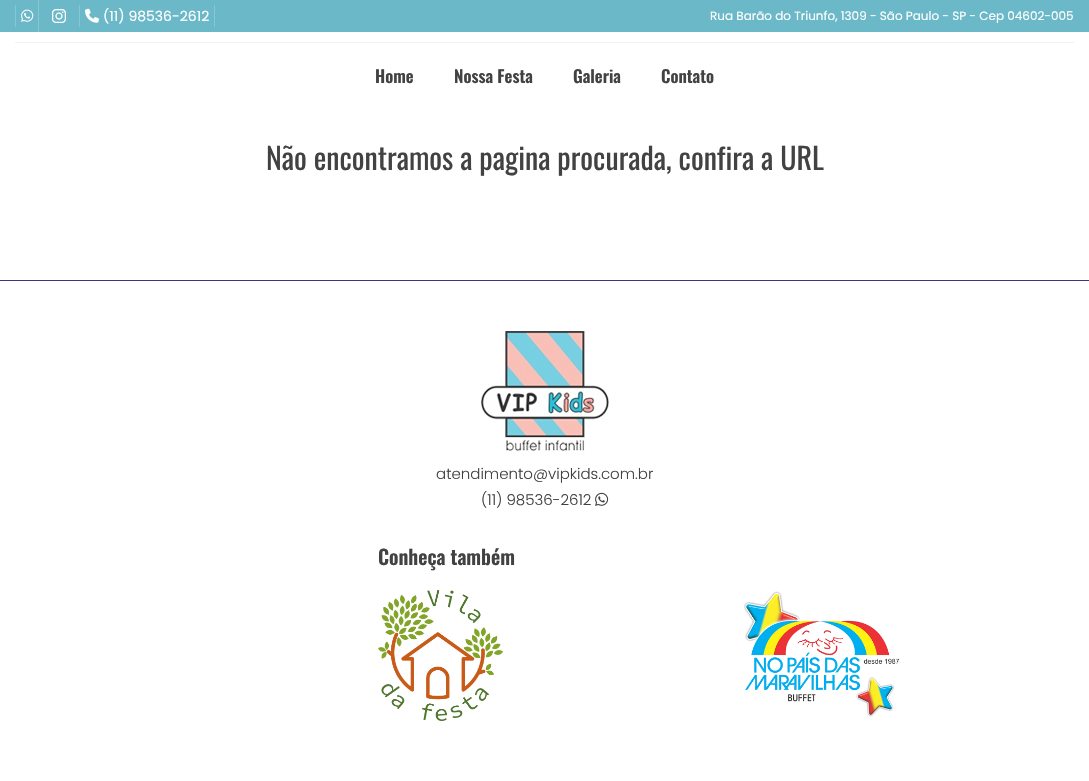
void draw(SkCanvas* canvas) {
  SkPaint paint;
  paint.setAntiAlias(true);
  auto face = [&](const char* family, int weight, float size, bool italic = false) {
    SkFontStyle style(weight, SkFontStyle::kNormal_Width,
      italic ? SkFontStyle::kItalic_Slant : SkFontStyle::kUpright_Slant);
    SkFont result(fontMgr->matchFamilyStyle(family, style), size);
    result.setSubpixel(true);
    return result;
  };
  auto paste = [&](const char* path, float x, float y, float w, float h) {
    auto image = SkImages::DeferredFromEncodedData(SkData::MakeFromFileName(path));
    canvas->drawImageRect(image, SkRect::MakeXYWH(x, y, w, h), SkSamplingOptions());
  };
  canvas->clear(0xffffffff);
  paint.setColor(0xff6bb8c8);
  canvas->drawRect(SkRect::MakeXYWH(0, 0, 1089, 32), paint);
  paint.setColor(0xff89c6d3);
  canvas->drawRect(SkRect::MakeXYWH(15, 5, 1, 22), paint);
  paste("img/1.png", 21, 9, 13, 13);
  canvas->drawRect(SkRect::MakeXYWH(38, 0, 1, 32), paint);
  paste("img/2.png", 52, 9, 14, 14);
  canvas->drawRect(SkRect::MakeXYWH(214, 5, 1, 22), paint);
  canvas->drawRect(SkRect::MakeXYWH(79, 5, 1, 22), paint);
  paste("img/3.png", 85, 8, 14, 15);
  paint.setColor(0xfff2f2f2);
  canvas->drawRect(SkRect::MakeXYWH(15, 42, 1059, 1), paint);
  paint.setColor(0xff3d377b);
  canvas->drawRect(SkRect::MakeXYWH(0, 280, 1089, 1), paint);
  paste("img/4.png", 481, 331, 128, 120);
  paste("img/5.png", 595, 492, 14, 14);
  paste("img/6.png", 378, 590, 125, 131);
  paste("img/7.png", 744, 591, 156, 126);
  auto f0 = face("Poppins", 400, 14);
  paint.setColor(0xffffffff);
  canvas->drawString("(11) 98536-2612", 103, 21, f0, paint);
  auto f1 = face("Poppins", 400, 12);
  canvas->drawString("Rua Barão do Triunfo, 1309 - São Paulo - SP - Cep 04602-005", 710, 20, f1, paint);
  auto f2 = face("Oswald", 600, 17);
  paint.setColor(0xff424242);
  {
    const struct { const char* s; float x, y; } items[] = {
      {"Home", 375, 83},
      {"Nossa Festa", 454, 83},
      {"Galeria", 573, 83},
      {"Contato", 661, 83},
    };
    for (auto [s, x, y] : items) {
      canvas->drawString(s, x, y, f2, paint);
    }
  }
  auto f3 = face("Oswald", 400, 30);
  canvas->drawString("Não encontramos a pagina procurada, confira a URL", 266, 170, f3, paint);
  auto f4 = face("Poppins", 300, 15);
  canvas->drawString("atendimento@vipkids.com.br", 436, 479, f4, paint);
  canvas->drawString("(11) 98536-2612", 481, 505, f4, paint);
  auto f5 = face("Oswald", 600, 20);
  canvas->drawString("Conheça também", 378, 565, f5, paint);
}
